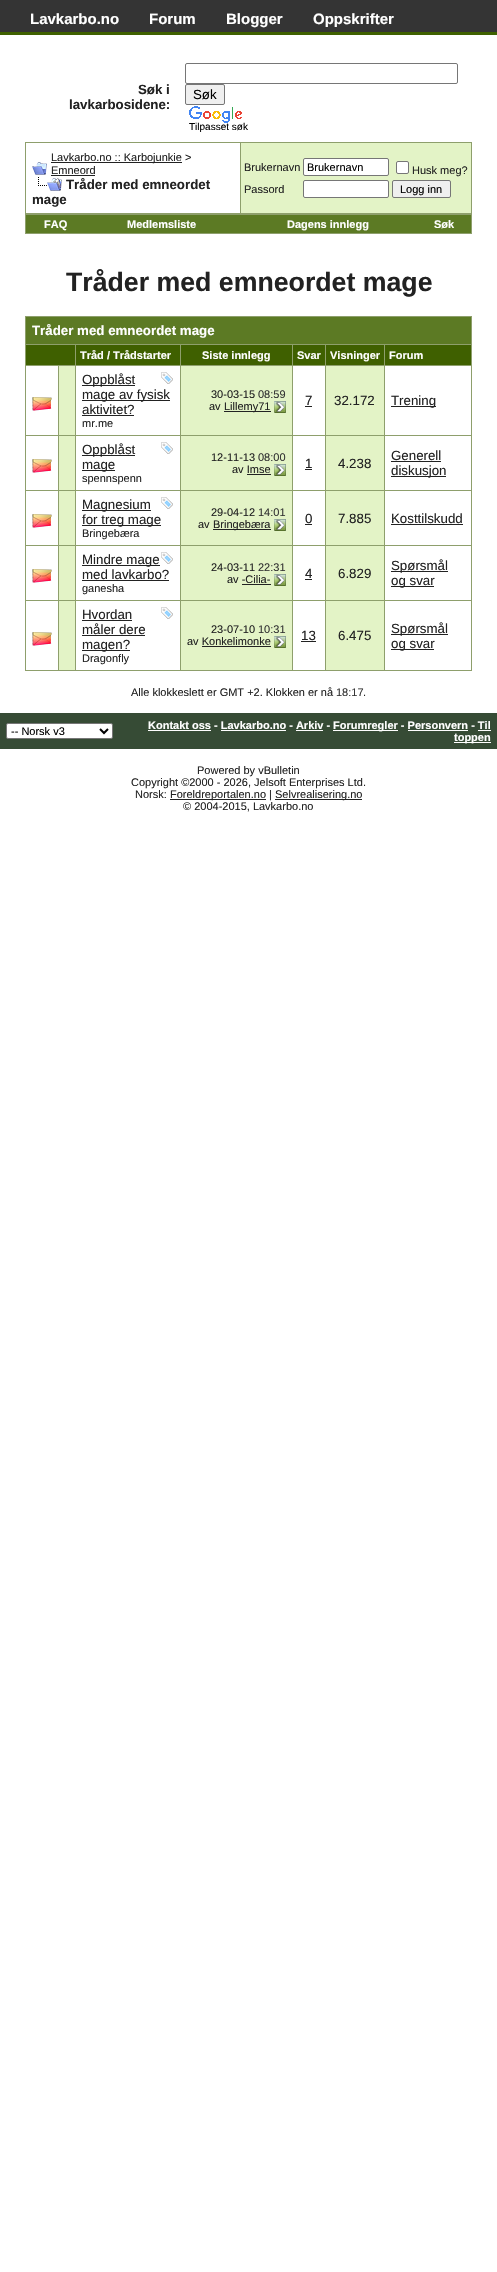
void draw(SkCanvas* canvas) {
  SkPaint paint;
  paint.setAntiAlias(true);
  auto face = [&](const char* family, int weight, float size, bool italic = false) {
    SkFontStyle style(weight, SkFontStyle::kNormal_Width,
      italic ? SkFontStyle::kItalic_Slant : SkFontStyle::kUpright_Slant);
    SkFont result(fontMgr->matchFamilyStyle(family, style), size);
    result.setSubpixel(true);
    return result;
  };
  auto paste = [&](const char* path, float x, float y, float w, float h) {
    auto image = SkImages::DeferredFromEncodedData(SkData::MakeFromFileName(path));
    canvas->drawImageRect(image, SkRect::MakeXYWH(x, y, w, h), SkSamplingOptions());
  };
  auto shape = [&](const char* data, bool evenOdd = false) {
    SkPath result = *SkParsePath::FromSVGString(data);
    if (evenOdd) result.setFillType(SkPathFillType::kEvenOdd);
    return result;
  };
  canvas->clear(0xffffffff);
  paint.setColor(0xff343434);
  canvas->drawRect(SkRect::MakeXYWH(0, 0, 497, 32), paint);
  paint.setColor(0xff3f6000);
  canvas->drawRect(SkRect::MakeXYWH(0, 32, 497, 3), paint);
  paint.setStroke(true);
  paint.setStrokeWidth(1);
  paint.setColor(0xff767676);
  canvas->drawRoundRect(SkRect::MakeXYWH(185.5f, 63.5f, 272, 20), 1.5f, 1.5f, paint);
  paint.setStroke(false);
  paint.setColor(0xffefefef);
  canvas->drawRoundRect(SkRect::MakeXYWH(185.5f, 84.5f, 39, 20), 1.5f, 1.5f, paint);
  paint.setStroke(true);
  paint.setColor(0xff767676);
  canvas->drawRoundRect(SkRect::MakeXYWH(185.5f, 84.5f, 39, 20), 1.5f, 1.5f, paint);
  paste("img/1.png", 189, 106, 53, 17);
  paint.setStroke(false);
  paint.setColor(0xff8e9f6c);
  canvas->drawRect(SkRect::MakeXYWH(25, 142, 447, 92), paint);
  paint.setColor(0xffffffff);
  canvas->drawRect(SkRect::MakeXYWH(26, 143, 214, 70), paint);
  paste("img/2.png", 32, 162, 15, 13);
  paint.setColor(0xff222222);
  canvas->drawRect(SkRect::MakeXYWH(51, 162, 131, 1), paint);
  canvas->drawRect(SkRect::MakeXYWH(51, 175, 44, 1), paint);
  paste("img/3.png", 38, 177, 24, 14);
  paint.setColor(0xffe3f3c6);
  canvas->drawRect(SkRect::MakeXYWH(241, 143, 230, 70), paint);
  paint.setColor(0xffffffff);
  canvas->drawRoundRect(SkRect::MakeXYWH(303.5f, 158.5f, 85, 17), 1.5f, 1.5f, paint);
  paint.setStroke(true);
  paint.setColor(0xff767676);
  canvas->drawRoundRect(SkRect::MakeXYWH(303.5f, 158.5f, 85, 17), 1.5f, 1.5f, paint);
  paint.setStroke(false);
  paint.setColor(0xffffffff);
  canvas->drawRoundRect(SkRect::MakeXYWH(396.5f, 161.5f, 12, 12), 1.5f, 1.5f, paint);
  paint.setStroke(true);
  paint.setColor(0xff767676);
  canvas->drawRoundRect(SkRect::MakeXYWH(396.5f, 161.5f, 12, 12), 1.5f, 1.5f, paint);
  paint.setStroke(false);
  paint.setColor(0xffffffff);
  canvas->drawRoundRect(SkRect::MakeXYWH(303.5f, 180.5f, 85, 17), 1.5f, 1.5f, paint);
  paint.setStroke(true);
  paint.setColor(0xff767676);
  canvas->drawRoundRect(SkRect::MakeXYWH(303.5f, 180.5f, 85, 17), 1.5f, 1.5f, paint);
  paint.setStroke(false);
  paint.setColor(0xffefefef);
  canvas->drawRoundRect(SkRect::MakeXYWH(392.5f, 180.5f, 58, 17), 1.5f, 1.5f, paint);
  paint.setStroke(true);
  paint.setColor(0xff767676);
  canvas->drawRoundRect(SkRect::MakeXYWH(392.5f, 180.5f, 58, 17), 1.5f, 1.5f, paint);
  paint.setStroke(false);
  {
    const struct { float x, y, w, h; SkColor color; } items[] = {
      {26, 215, 445, 18, 0xff5c7a24},
      {25, 316, 447, 355, 0xff8e9f6c},
      {26, 317, 445, 27, 0xff5c7a24},
      {26, 345, 49, 20, 0xff3f6000},
      {76, 345, 104, 20, 0xff3f6000},
      {181, 345, 111, 20, 0xff3f6000},
      {293, 345, 32, 20, 0xff3f6000},
      {326, 345, 58, 20, 0xff3f6000},
      {385, 345, 86, 20, 0xff3f6000},
      {26, 366, 32, 69, 0xffffffff},
    };
    for (auto [x, y, w, h, color] : items) {
      paint.setColor(color);
      canvas->drawRect(SkRect::MakeXYWH(x, y, w, h), paint);
    }
  }
  paste("img/4.png", 32, 397, 20, 14);
  {
    const struct { float x, y, w, h; SkColor color; } items[] = {
      {59, 366, 16, 69, 0xffe3f3c6},
      {76, 366, 104, 69, 0xffffffff},
      {82, 385, 53, 1, 0xff222222},
    };
    for (auto [x, y, w, h, color] : items) {
      paint.setColor(color);
      canvas->drawRect(SkRect::MakeXYWH(x, y, w, h), paint);
    }
  }
  paste("img/5.png", 161, 372, 12, 12);
  {
    const struct { float x, y, w, h; SkColor color; } items[] = {
      {82, 400, 88, 1, 0xff222222},
      {82, 415, 52, 1, 0xff222222},
      {181, 366, 111, 69, 0xffe3f3c6},
      {224, 411, 47, 1, 0xff222222},
    };
    for (auto [x, y, w, h, color] : items) {
      paint.setColor(color);
      canvas->drawRect(SkRect::MakeXYWH(x, y, w, h), paint);
    }
  }
  paste("img/6.png", 274, 401, 12, 12);
  {
    const struct { float x, y, w, h; SkColor color; } items[] = {
      {293, 366, 32, 69, 0xffffffff},
      {305, 406, 7, 1, 0xff222222},
      {326, 366, 58, 69, 0xffe3f3c6},
      {385, 366, 86, 69, 0xffffffff},
      {391, 406, 45, 1, 0xff222222},
      {26, 436, 32, 54, 0xffffffff},
    };
    for (auto [x, y, w, h, color] : items) {
      paint.setColor(color);
      canvas->drawRect(SkRect::MakeXYWH(x, y, w, h), paint);
    }
  }
  paste("img/4.png", 32, 459, 20, 14);
  {
    const struct { float x, y, w, h; SkColor color; } items[] = {
      {59, 436, 16, 54, 0xffe3f3c6},
      {76, 436, 104, 54, 0xffffffff},
      {82, 455, 53, 1, 0xff222222},
    };
    for (auto [x, y, w, h, color] : items) {
      paint.setColor(color);
      canvas->drawRect(SkRect::MakeXYWH(x, y, w, h), paint);
    }
  }
  paste("img/5.png", 161, 442, 12, 12);
  canvas->drawRect(SkRect::MakeXYWH(82, 470, 33, 1), paint);
  paint.setColor(0xffe3f3c6);
  canvas->drawRect(SkRect::MakeXYWH(181, 436, 111, 54), paint);
  paste("img/6.png", 274, 464, 12, 12);
  {
    const struct { float x, y, w, h; SkColor color; } items[] = {
      {247, 474, 24, 1, 0xff222222},
      {293, 436, 32, 54, 0xffffffff},
      {305, 469, 7, 1, 0xff222222},
      {326, 436, 58, 54, 0xffe3f3c6},
      {385, 436, 86, 54, 0xffffffff},
      {391, 461, 50, 1, 0xff222222},
      {391, 476, 55, 1, 0xff222222},
      {26, 491, 32, 54, 0xffffffff},
    };
    for (auto [x, y, w, h, color] : items) {
      paint.setColor(color);
      canvas->drawRect(SkRect::MakeXYWH(x, y, w, h), paint);
    }
  }
  paste("img/4.png", 32, 514, 20, 14);
  {
    const struct { float x, y, w, h; SkColor color; } items[] = {
      {59, 491, 16, 54, 0xffe3f3c6},
      {76, 491, 104, 54, 0xffffffff},
      {82, 510, 69, 1, 0xff222222},
    };
    for (auto [x, y, w, h, color] : items) {
      paint.setColor(color);
      canvas->drawRect(SkRect::MakeXYWH(x, y, w, h), paint);
    }
  }
  paste("img/5.png", 161, 497, 12, 12);
  {
    const struct { float x, y, w, h; SkColor color; } items[] = {
      {82, 525, 79, 1, 0xff222222},
      {181, 491, 111, 54, 0xffe3f3c6},
      {213, 529, 58, 1, 0xff222222},
    };
    for (auto [x, y, w, h, color] : items) {
      paint.setColor(color);
      canvas->drawRect(SkRect::MakeXYWH(x, y, w, h), paint);
    }
  }
  paste("img/6.png", 274, 519, 12, 12);
  {
    const struct { float x, y, w, h; SkColor color; } items[] = {
      {293, 491, 32, 54, 0xffffffff},
      {305, 524, 7, 1, 0xff222222},
      {326, 491, 58, 54, 0xffe3f3c6},
      {385, 491, 86, 54, 0xffffffff},
      {391, 524, 72, 1, 0xff222222},
      {26, 546, 32, 54, 0xffffffff},
    };
    for (auto [x, y, w, h, color] : items) {
      paint.setColor(color);
      canvas->drawRect(SkRect::MakeXYWH(x, y, w, h), paint);
    }
  }
  paste("img/4.png", 32, 569, 20, 14);
  {
    const struct { float x, y, w, h; SkColor color; } items[] = {
      {59, 546, 16, 54, 0xffe3f3c6},
      {76, 546, 104, 54, 0xffffffff},
      {82, 565, 78, 1, 0xff222222},
    };
    for (auto [x, y, w, h, color] : items) {
      paint.setColor(color);
      canvas->drawRect(SkRect::MakeXYWH(x, y, w, h), paint);
    }
  }
  paste("img/5.png", 161, 552, 12, 12);
  canvas->drawRect(SkRect::MakeXYWH(82, 580, 87, 1), paint);
  paint.setColor(0xffe3f3c6);
  canvas->drawRect(SkRect::MakeXYWH(181, 546, 111, 54), paint);
  paste("img/6.png", 274, 574, 12, 12);
  {
    const struct { float x, y, w, h; SkColor color; } items[] = {
      {242, 584, 29, 1, 0xff222222},
      {293, 546, 32, 54, 0xffffffff},
      {305, 579, 7, 1, 0xff222222},
      {326, 546, 58, 54, 0xffe3f3c6},
      {385, 546, 86, 54, 0xffffffff},
      {391, 571, 57, 1, 0xff222222},
      {391, 586, 43, 1, 0xff222222},
      {26, 601, 32, 69, 0xffffffff},
    };
    for (auto [x, y, w, h, color] : items) {
      paint.setColor(color);
      canvas->drawRect(SkRect::MakeXYWH(x, y, w, h), paint);
    }
  }
  paste("img/4.png", 32, 632, 20, 14);
  {
    const struct { float x, y, w, h; SkColor color; } items[] = {
      {59, 601, 16, 69, 0xffe3f3c6},
      {76, 601, 104, 69, 0xffffffff},
      {82, 620, 50, 1, 0xff222222},
    };
    for (auto [x, y, w, h, color] : items) {
      paint.setColor(color);
      canvas->drawRect(SkRect::MakeXYWH(x, y, w, h), paint);
    }
  }
  paste("img/5.png", 161, 607, 12, 12);
  {
    const struct { float x, y, w, h; SkColor color; } items[] = {
      {82, 635, 63, 1, 0xff222222},
      {82, 650, 48, 1, 0xff222222},
      {181, 601, 111, 69, 0xffe3f3c6},
    };
    for (auto [x, y, w, h, color] : items) {
      paint.setColor(color);
      canvas->drawRect(SkRect::MakeXYWH(x, y, w, h), paint);
    }
  }
  paste("img/6.png", 274, 636, 12, 12);
  {
    const struct { float x, y, w, h; SkColor color; } items[] = {
      {202, 646, 69, 1, 0xff222222},
      {293, 601, 32, 69, 0xffffffff},
      {301, 641, 15, 1, 0xff222222},
      {326, 601, 58, 69, 0xffe3f3c6},
      {385, 601, 86, 69, 0xffffffff},
      {391, 634, 57, 1, 0xff222222},
      {391, 649, 43, 1, 0xff222222},
      {0, 713, 497, 36, 0xff364b35},
    };
    for (auto [x, y, w, h, color] : items) {
      paint.setColor(color);
      canvas->drawRect(SkRect::MakeXYWH(x, y, w, h), paint);
    }
  }
  paint.setColor(0xffffffff);
  canvas->drawRoundRect(SkRect::MakeXYWH(6.5f, 723.5f, 106, 15), 1.5f, 1.5f, paint);
  paint.setStroke(true);
  paint.setColor(0xff767676);
  canvas->drawRoundRect(SkRect::MakeXYWH(6.5f, 723.5f, 106, 15), 1.5f, 1.5f, paint);
  paint.setStrokeWidth(2);
  paint.setColor(0xff000000);
  canvas->drawPath(shape("M100 729L104 733L108 729"), paint);
  paint.setStroke(false);
  {
    const struct { float x, y, w, h; SkColor color; } items[] = {
      {148, 730, 63, 1, 0xffffffff},
      {221, 730, 65, 1, 0xffffffff},
      {296, 730, 27, 1, 0xffffffff},
      {333, 730, 65, 1, 0xffffffff},
      {408, 730, 60, 1, 0xffffffff},
      {478, 730, 13, 1, 0xffffffff},
      {454, 742, 37, 1, 0xffffffff},
      {170, 799, 96, 1, 0xff222222},
      {275, 799, 87, 1, 0xff222222},
    };
    for (auto [x, y, w, h, color] : items) {
      paint.setColor(color);
      canvas->drawRect(SkRect::MakeXYWH(x, y, w, h), paint);
    }
  }
  auto f0 = face("Liberation Sans", 700, 15);
  paint.setColor(0xffffffff);
  {
    const struct { const char* s; float x, y; } items[] = {
      {"Lavkarbo.no", 30, 24},
      {"Forum", 149, 24},
      {"Blogger", 226, 24},
      {"Oppskrifter", 313, 24},
    };
    for (auto [s, x, y] : items) {
      canvas->drawString(s, x, y, f0, paint);
    }
  }
  auto f1 = face("Liberation Sans", 700, 13.3f);
  paint.setColor(0xff222222);
  canvas->drawString("Søk i", 138, 94, f1, paint);
  canvas->drawString("lavkarbosidene:", 69, 109, f1, paint);
  auto f2 = face("Liberation Sans", 400, 13.3f);
  paint.setColor(0xff000000);
  canvas->drawString("Søk", 193, 99, f2, paint);
  auto f3 = face("Liberation Sans", 400, 10);
  canvas->drawString("Tilpasset søk", 189, 130, f3, paint);
  auto f4 = face("Liberation Sans", 400, 11);
  paint.setColor(0xff222222);
  {
    const struct { const char* s; float x, y; } items[] = {
      {"Lavkarbo.no :: Karbojunkie", 51, 161},
      {">", 185, 161},
      {"Emneord", 51, 174},
    };
    for (auto [s, x, y] : items) {
      canvas->drawString(s, x, y, f4, paint);
    }
  }
  canvas->drawString("Tråder med emneordet", 66, 189, f1, paint);
  canvas->drawString("mage", 32, 204, f1, paint);
  canvas->drawString("Brukernavn", 244, 171, f4, paint);
  paint.setColor(0xff000000);
  canvas->drawString("Brukernavn", 307, 171, f4, paint);
  paint.setColor(0xff222222);
  canvas->drawString("Husk meg?", 412, 174, f4, paint);
  canvas->drawString("Passord", 244, 193, f4, paint);
  paint.setColor(0xff000000);
  canvas->drawString("Logg inn", 400, 193, f4, paint);
  auto f5 = face("Liberation Sans", 700, 11);
  paint.setColor(0xffffffff);
  {
    const struct { const char* s; float x, y; } items[] = {
      {"FAQ", 44, 228},
      {"Medlemsliste", 127, 228},
      {"Dagens innlegg", 287, 228},
      {"Søk", 434, 228},
    };
    for (auto [s, x, y] : items) {
      canvas->drawString(s, x, y, f5, paint);
    }
  }
  auto f6 = face("Liberation Sans", 700, 26.7f);
  paint.setColor(0xff222222);
  canvas->drawString("Tråder med emneordet mage", 66, 291, f6, paint);
  paint.setColor(0xffffffff);
  canvas->drawString("Tråder med emneordet mage", 32, 335, f1, paint);
  {
    const struct { const char* s; float x, y; } items[] = {
      {"Tråd / Trådstarter", 80, 359},
      {"Siste innlegg", 202, 359},
      {"Svar", 297, 359},
      {"Visninger", 330, 359},
      {"Forum", 389, 359},
    };
    for (auto [s, x, y] : items) {
      canvas->drawString(s, x, y, f5, paint);
    }
  }
  paint.setColor(0xff222222);
  {
    const struct { const char* s; float x, y; } items[] = {
      {"Oppblåst", 82, 384},
      {"mage av fysisk", 82, 399},
      {"aktivitet?", 82, 414},
    };
    for (auto [s, x, y] : items) {
      canvas->drawString(s, x, y, f2, paint);
    }
  }
  canvas->drawString("mr.me", 82, 427, f4, paint);
  canvas->drawString("30-03-15", 211, 398, f4, paint);
  paint.setColor(0xff333333);
  canvas->drawString("08:59", 258, 398, f4, paint);
  paint.setColor(0xff222222);
  canvas->drawString("av", 209, 410, f4, paint);
  canvas->drawString("Lillemy71", 224, 410, f4, paint);
  {
    const struct { const char* s; float x, y; } items[] = {
      {"7", 305, 405},
      {"32.172", 334, 405},
      {"Trening", 391, 405},
      {"Oppblåst", 82, 454},
      {"mage", 82, 469},
    };
    for (auto [s, x, y] : items) {
      canvas->drawString(s, x, y, f2, paint);
    }
  }
  canvas->drawString("spennspenn", 82, 482, f4, paint);
  canvas->drawString("12-11-13", 211, 461, f4, paint);
  paint.setColor(0xff333333);
  canvas->drawString("08:00", 258, 461, f4, paint);
  paint.setColor(0xff222222);
  canvas->drawString("av Imse", 232, 473, f4, paint);
  {
    const struct { const char* s; float x, y; } items[] = {
      {"1", 305, 468},
      {"4.238", 338, 468},
      {"Generell", 391, 460},
      {"diskusjon", 391, 475},
      {"Magnesium", 82, 509},
      {"for treg mage", 82, 524},
    };
    for (auto [s, x, y] : items) {
      canvas->drawString(s, x, y, f2, paint);
    }
  }
  canvas->drawString("Bringebæra", 82, 537, f4, paint);
  canvas->drawString("29-04-12", 211, 516, f4, paint);
  paint.setColor(0xff333333);
  canvas->drawString("14:01", 258, 516, f4, paint);
  paint.setColor(0xff222222);
  canvas->drawString("av", 198, 528, f4, paint);
  canvas->drawString("Bringebæra", 213, 528, f4, paint);
  {
    const struct { const char* s; float x, y; } items[] = {
      {"0", 305, 523},
      {"7.885", 338, 523},
      {"Kosttilskudd", 391, 523},
      {"Mindre mage", 82, 564},
      {"med lavkarbo?", 82, 579},
    };
    for (auto [s, x, y] : items) {
      canvas->drawString(s, x, y, f2, paint);
    }
  }
  canvas->drawString("ganesha", 82, 592, f4, paint);
  canvas->drawString("24-03-11", 211, 571, f4, paint);
  paint.setColor(0xff333333);
  canvas->drawString("22:31", 258, 571, f4, paint);
  paint.setColor(0xff222222);
  canvas->drawString("av -Cilia-", 227, 583, f4, paint);
  {
    const struct { const char* s; float x, y; } items[] = {
      {"4", 305, 578},
      {"6.829", 338, 578},
      {"Spørsmål", 391, 570},
      {"og svar", 391, 585},
      {"Hvordan", 82, 619},
      {"måler dere", 82, 634},
      {"magen?", 82, 649},
    };
    for (auto [s, x, y] : items) {
      canvas->drawString(s, x, y, f2, paint);
    }
  }
  canvas->drawString("Dragonfly", 82, 662, f4, paint);
  canvas->drawString("23-07-10", 211, 633, f4, paint);
  paint.setColor(0xff333333);
  canvas->drawString("10:31", 258, 633, f4, paint);
  paint.setColor(0xff222222);
  canvas->drawString("av Konkelimonke", 187, 645, f4, paint);
  {
    const struct { const char* s; float x, y; } items[] = {
      {"13", 301, 640},
      {"6.475", 338, 640},
      {"Spørsmål", 391, 633},
      {"og svar", 391, 648},
    };
    for (auto [s, x, y] : items) {
      canvas->drawString(s, x, y, f2, paint);
    }
  }
  canvas->drawString("Alle klokkeslett er GMT +2. Klokken er nå", 131, 696, f4, paint);
  paint.setColor(0xff333333);
  canvas->drawString("18:17", 336, 696, f4, paint);
  paint.setColor(0xff222222);
  canvas->drawString(".", 363, 696, f4, paint);
  paint.setColor(0xff000000);
  canvas->drawString("-- Norsk v3", 11, 735, f4, paint);
  paint.setColor(0xffffffff);
  {
    const struct { const char* s; float x, y; } items[] = {
      {"Kontakt oss - Lavkarbo.no - Arkiv -", 148, 729},
      {"Forumregler - Personvern - Til", 333, 729},
      {"toppen", 454, 741},
    };
    for (auto [s, x, y] : items) {
      canvas->drawString(s, x, y, f5, paint);
    }
  }
  paint.setColor(0xff222222);
  {
    const struct { const char* s; float x, y; } items[] = {
      {"Powered by vBulletin", 197, 774},
      {"Copyright ©2000 - 2026, Jelsoft Enterprises Ltd.", 131, 786},
      {"Norsk:", 135, 798},
      {"Foreldreportalen.no |", 170, 798},
      {"Selvrealisering.no", 275, 798},
      {"© 2004-2015, Lavkarbo.no", 183, 810},
    };
    for (auto [s, x, y] : items) {
      canvas->drawString(s, x, y, f4, paint);
    }
  }
}
